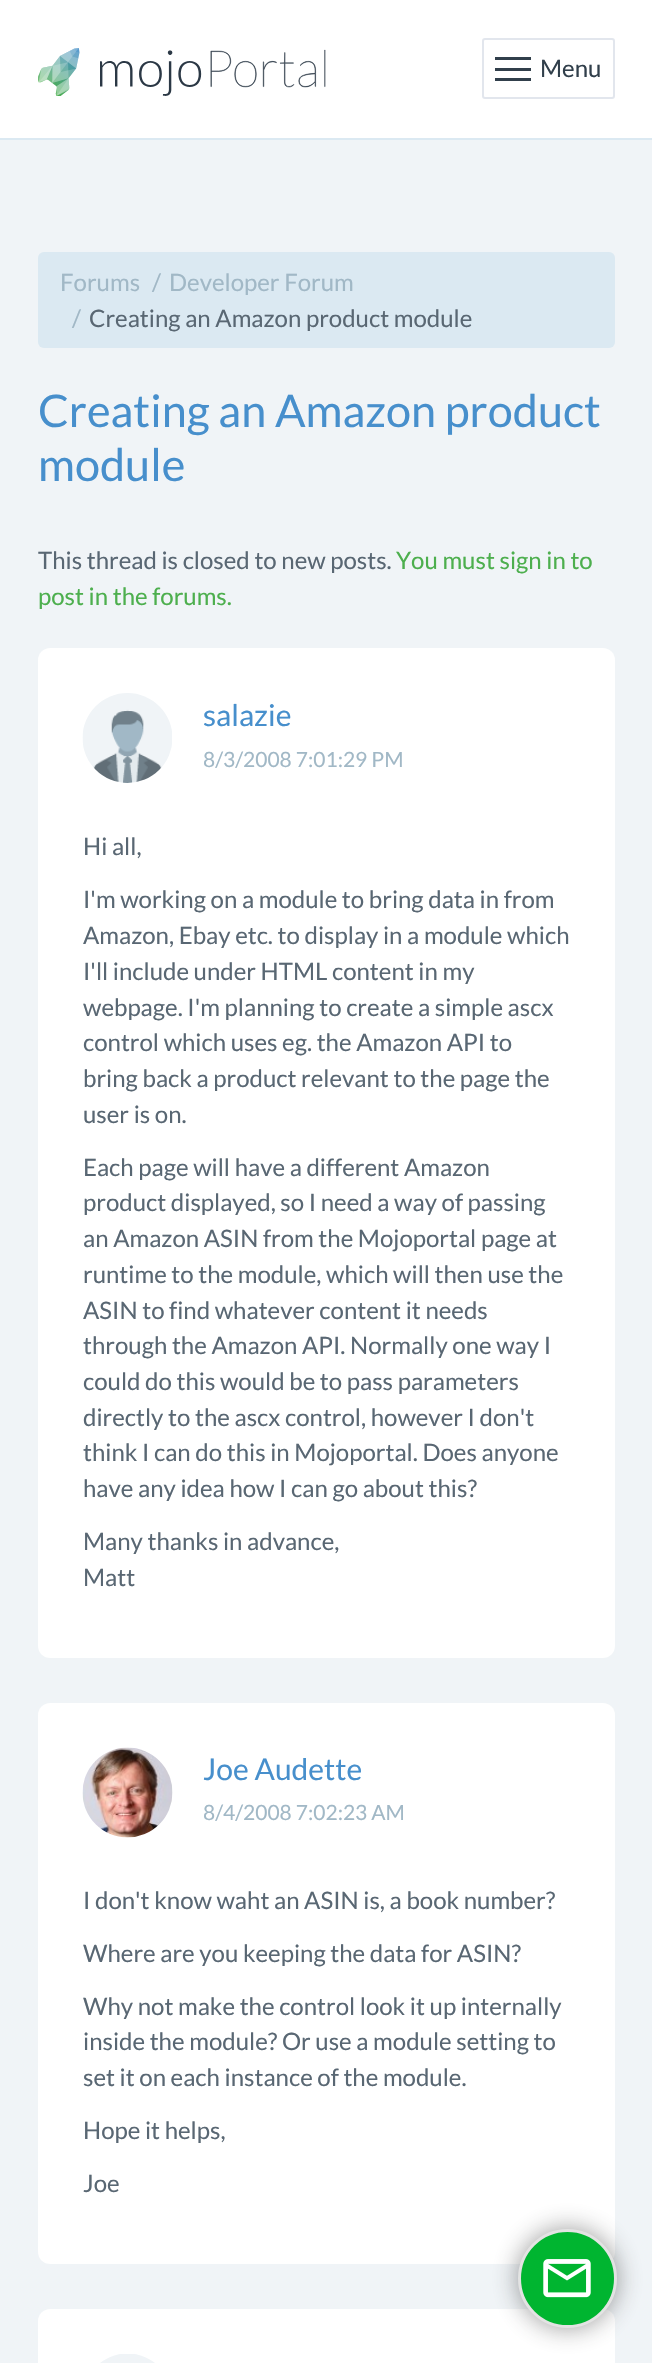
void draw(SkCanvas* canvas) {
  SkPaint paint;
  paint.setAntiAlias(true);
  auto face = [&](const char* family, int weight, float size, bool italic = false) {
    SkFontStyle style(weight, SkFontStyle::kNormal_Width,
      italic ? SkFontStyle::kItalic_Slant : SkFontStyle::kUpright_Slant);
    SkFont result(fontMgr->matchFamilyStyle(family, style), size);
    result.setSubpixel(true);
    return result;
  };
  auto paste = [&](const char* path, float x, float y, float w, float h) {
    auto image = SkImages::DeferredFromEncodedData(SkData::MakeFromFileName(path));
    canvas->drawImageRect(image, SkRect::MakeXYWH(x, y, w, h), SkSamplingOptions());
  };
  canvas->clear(0xfff0f4f7);
  paint.setColor(0xffffffff);
  canvas->drawRect(SkRect::MakeXYWH(0, 0, 652, 138), paint);
  paint.setColor(0xffdbe9f2);
  canvas->drawRect(SkRect::MakeXYWH(0, 138, 652, 2), paint);
  paste("img/1.png", 38, 48, 288, 48);
  paint.setStroke(true);
  paint.setStrokeWidth(2);
  paint.setColor(0xffe2e6ed);
  canvas->drawRoundRect(SkRect::MakeXYWH(483, 39, 131, 59), 2, 2, paint);
  paint.setStroke(false);
  {
    const struct { float x, y, w, h; SkColor color; } items[] = {
      {495, 57, 36, 3, 0xff313f4b},
      {495, 68, 36, 3, 0xff313f4b},
      {495, 78, 36, 3, 0xff313f4b},
    };
    for (auto [x, y, w, h, color] : items) {
      paint.setColor(color);
      canvas->drawRect(SkRect::MakeXYWH(x, y, w, h), paint);
    }
  }
  paint.setColor(0xffdbe9f2);
  canvas->drawRoundRect(SkRect::MakeXYWH(38, 252, 577, 96), 6, 6, paint);
  paint.setColor(0xffffffff);
  canvas->drawRoundRect(SkRect::MakeXYWH(38, 648, 577, 1010), 12, 12, paint);
  paste("img/2.png", 82, 693, 90, 90);
  canvas->drawRoundRect(SkRect::MakeXYWH(38, 1703, 577, 561), 12, 12, paint);
  paste("img/3.png", 82, 1747, 91, 91);
  canvas->drawRoundRect(SkRect::MakeXYWH(38, 2309, 577, 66), 12, 12, paint);
  paste("img/4.png", 100, 2354, 55, 9);
  paint.setColor(0x80323232);
  paint.setMaskFilter(SkMaskFilter::MakeBlur(kNormal_SkBlurStyle, 13));
  canvas->drawRoundRect(SkRect::MakeXYWH(518, 2229, 99, 99), 49.5f, 49.5f, paint);
  paint.setMaskFilter(nullptr);
  paint.setColor(0xff00b530);
  canvas->drawCircle(567.5f, 2278.5f, 48, paint);
  paint.setStroke(true);
  paint.setStrokeWidth(3);
  paint.setColor(0xffe3e3e3);
  canvas->drawCircle(567.5f, 2278.5f, 48, paint);
  paste("img/5.png", 543, 2259, 48, 39);
  auto f0 = face("Lato", 400, 24);
  paint.setStroke(false);
  paint.setColor(0xff313f4b);
  canvas->drawString("Menu", 540, 77, f0, paint);
  paint.setColor(0xffa1b8c6);
  {
    const struct { const char* s; float x, y; } items[] = {
      {"Forums", 60, 291},
      {"/", 152, 291},
      {"Developer Forum", 169, 291},
      {"/", 72, 327},
    };
    for (auto [s, x, y] : items) {
      canvas->drawString(s, x, y, f0, paint);
    }
  }
  paint.setColor(0xff596773);
  canvas->drawString("Creating an Amazon product module", 89, 327, f0, paint);
  auto f1 = face("Lato", 400, 45);
  paint.setColor(0xff478fcc);
  canvas->drawString("Creating an Amazon product", 38, 427, f1, paint);
  canvas->drawString("module", 38, 481, f1, paint);
  paint.setColor(0xff596773);
  canvas->drawString("This thread is closed to new posts.", 38, 569, f0, paint);
  paint.setColor(0xff4daf4e);
  canvas->drawString("You must sign in to", 396, 569, f0, paint);
  canvas->drawString("post in the forums.", 38, 605, f0, paint);
  auto f2 = face("Lato", 400, 30);
  paint.setColor(0xff478fcc);
  canvas->drawString("salazie", 203, 726, f2, paint);
  paint.setColor(0xff596773);
  {
    const struct { const char* s; float x, y; } items[] = {
      {"Hi all,", 83, 855},
      {"I'm working on a module to bring data in from", 83, 908},
      {"Amazon, Ebay etc. to display in a module which", 83, 944},
      {"I'll include under HTML content in my", 83, 980},
      {"webpage. I'm planning to create a simple ascx", 83, 1016},
      {"control which uses eg. the Amazon API to", 83, 1051},
      {"bring back a product relevant to the page the", 83, 1087},
      {"user is on.", 83, 1123},
      {"Each page will have a different Amazon", 83, 1176},
      {"product displayed, so I need a way of passing", 83, 1211},
      {"an Amazon ASIN from the Mojoportal page at", 83, 1247},
      {"runtime to the module, which will then use the", 83, 1283},
      {"ASIN to find whatever content it needs", 83, 1319},
      {"through the Amazon API. Normally one way I", 83, 1354},
      {"could do this would be to pass parameters", 83, 1390},
      {"directly to the ascx control, however I don't", 83, 1426},
      {"think I can do this in Mojoportal. Does anyone", 83, 1461},
      {"have any idea how I can go about this?", 83, 1497},
      {"Many thanks in advance,", 83, 1550},
      {"Matt", 83, 1586},
    };
    for (auto [s, x, y] : items) {
      canvas->drawString(s, x, y, f0, paint);
    }
  }
  auto f3 = face("Lato", 400, 21);
  paint.setColor(0xffa1b8c6);
  canvas->drawString("8/3/2008 7:01:29 PM", 203, 767, f3, paint);
  paint.setColor(0xff478fcc);
  canvas->drawString("Joe Audette", 203, 1780, f2, paint);
  paint.setColor(0xff596773);
  {
    const struct { const char* s; float x, y; } items[] = {
      {"I don't know waht an ASIN is, a book number?", 83, 1909},
      {"Where are you keeping the data for ASIN?", 83, 1962},
      {"Why not make the control look it up internally", 83, 2015},
      {"inside the module? Or use a module setting to", 83, 2050},
      {"set it on each instance of the module.", 83, 2086},
      {"Hope it helps,", 83, 2139},
      {"Joe", 83, 2192},
    };
    for (auto [s, x, y] : items) {
      canvas->drawString(s, x, y, f0, paint);
    }
  }
  paint.setColor(0xffa1b8c6);
  canvas->drawString("8/4/2008 7:02:23 AM", 203, 1820, f3, paint);
}
